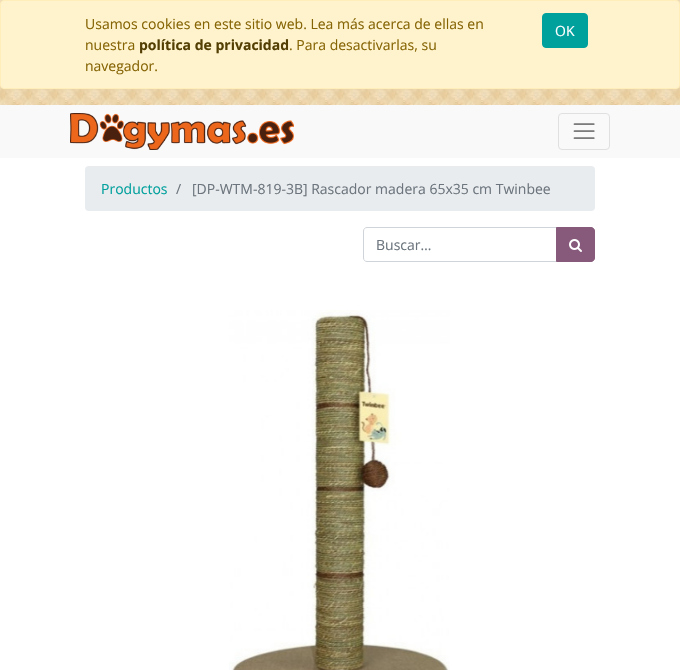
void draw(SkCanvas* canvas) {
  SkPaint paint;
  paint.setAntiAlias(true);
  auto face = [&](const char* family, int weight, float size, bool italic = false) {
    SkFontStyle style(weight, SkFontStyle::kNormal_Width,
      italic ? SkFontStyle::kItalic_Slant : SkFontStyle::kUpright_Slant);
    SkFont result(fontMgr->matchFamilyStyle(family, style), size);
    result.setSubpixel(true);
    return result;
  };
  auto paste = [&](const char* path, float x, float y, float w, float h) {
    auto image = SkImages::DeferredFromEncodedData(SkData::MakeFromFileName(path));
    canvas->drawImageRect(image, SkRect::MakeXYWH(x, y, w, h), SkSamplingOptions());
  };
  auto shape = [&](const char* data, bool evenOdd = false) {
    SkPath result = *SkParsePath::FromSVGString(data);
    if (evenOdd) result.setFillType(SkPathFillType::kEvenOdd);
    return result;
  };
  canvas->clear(0xffffffff);
  paste("img/1.png", 0, 0, 680, 105);
  paint.setColor(0xfffff3cd);
  canvas->drawRoundRect(SkRect::MakeXYWH(0.5f, 0.5f, 679, 88), 3.5f, 3.5f, paint);
  paint.setStroke(true);
  paint.setStrokeWidth(1);
  paint.setColor(0xffffeeba);
  canvas->drawRoundRect(SkRect::MakeXYWH(0.5f, 0.5f, 679, 88), 3.5f, 3.5f, paint);
  paint.setStroke(false);
  paint.setColor(0xff00a09d);
  canvas->drawRoundRect(SkRect::MakeXYWH(542.5f, 13.5f, 45, 34), 3.5f, 3.5f, paint);
  paint.setStroke(true);
  canvas->drawRoundRect(SkRect::MakeXYWH(542.5f, 13.5f, 45, 34), 3.5f, 3.5f, paint);
  paint.setStroke(false);
  paint.setColor(0xfff9f9f9);
  canvas->drawRect(SkRect::MakeXYWH(0, 105, 680, 53), paint);
  paste("img/2.png", 70, 113, 224, 37);
  paint.setStroke(true);
  paint.setColor(0xffe0e0e0);
  canvas->drawRoundRect(SkRect::MakeXYWH(558.5f, 113.5f, 51, 36), 3.5f, 3.5f, paint);
  paste("img/3.png", 573, 123, 22, 16);
  paint.setStroke(false);
  paint.setColor(0xffe9ecef);
  canvas->drawRoundRect(SkRect::MakeXYWH(85, 166, 510, 45), 4, 4, paint);
  paint.setStroke(true);
  paint.setColor(0xffced4da);
  canvas->drawPath(shape("M367 227.5H556.5V261.5H367C365 261.5 363.5 260 363.5 258V231C363.5 229 365 227.5 367 227.5Z"), paint);
  paint.setStroke(false);
  paint.setColor(0xff875a7b);
  canvas->drawPath(shape("M556.5 227.5H591C593 227.5 594.5 229 594.5 231V258C594.5 260 593 261.5 591 261.5H556.5Z"), paint);
  paint.setStroke(true);
  canvas->drawPath(shape("M556.5 227.5H591C593 227.5 594.5 229 594.5 231V258C594.5 260 593 261.5 591 261.5H556.5Z"), paint);
  paste("img/4.png", 569, 239, 13, 13);
  paste("img/5.png", 229, 310, 221, 360);
  auto f0 = face("Open Sans", 400, 14);
  paint.setStroke(false);
  paint.setColor(0xff856404);
  canvas->drawString("Usamos cookies en este sitio web. Lea más acerca de ellas en", 85, 29, f0, paint);
  canvas->drawString("nuestra", 85, 50, f0, paint);
  auto f1 = face("Open Sans", 700, 14);
  paint.setColor(0xff533f03);
  canvas->drawString("política de privacidad", 139, 50, f1, paint);
  paint.setColor(0xff856404);
  canvas->drawString(". Para desactivarlas, su", 289, 50, f0, paint);
  canvas->drawString("navegador.", 85, 71, f0, paint);
  paint.setColor(0xffffffff);
  canvas->drawString("OK", 555, 36, f0, paint);
  paint.setColor(0xff00a09d);
  canvas->drawString("Productos", 101, 194, f0, paint);
  paint.setColor(0xff6c757d);
  {
    const struct { const char* s; float x, y; } items[] = {
      {"/", 176, 194},
      {"[DP-WTM-819-3B] Rascador madera 65x35 cm Twinbee", 192, 194},
      {"Buscar…", 376, 250},
    };
    for (auto [s, x, y] : items) {
      canvas->drawString(s, x, y, f0, paint);
    }
  }
}
